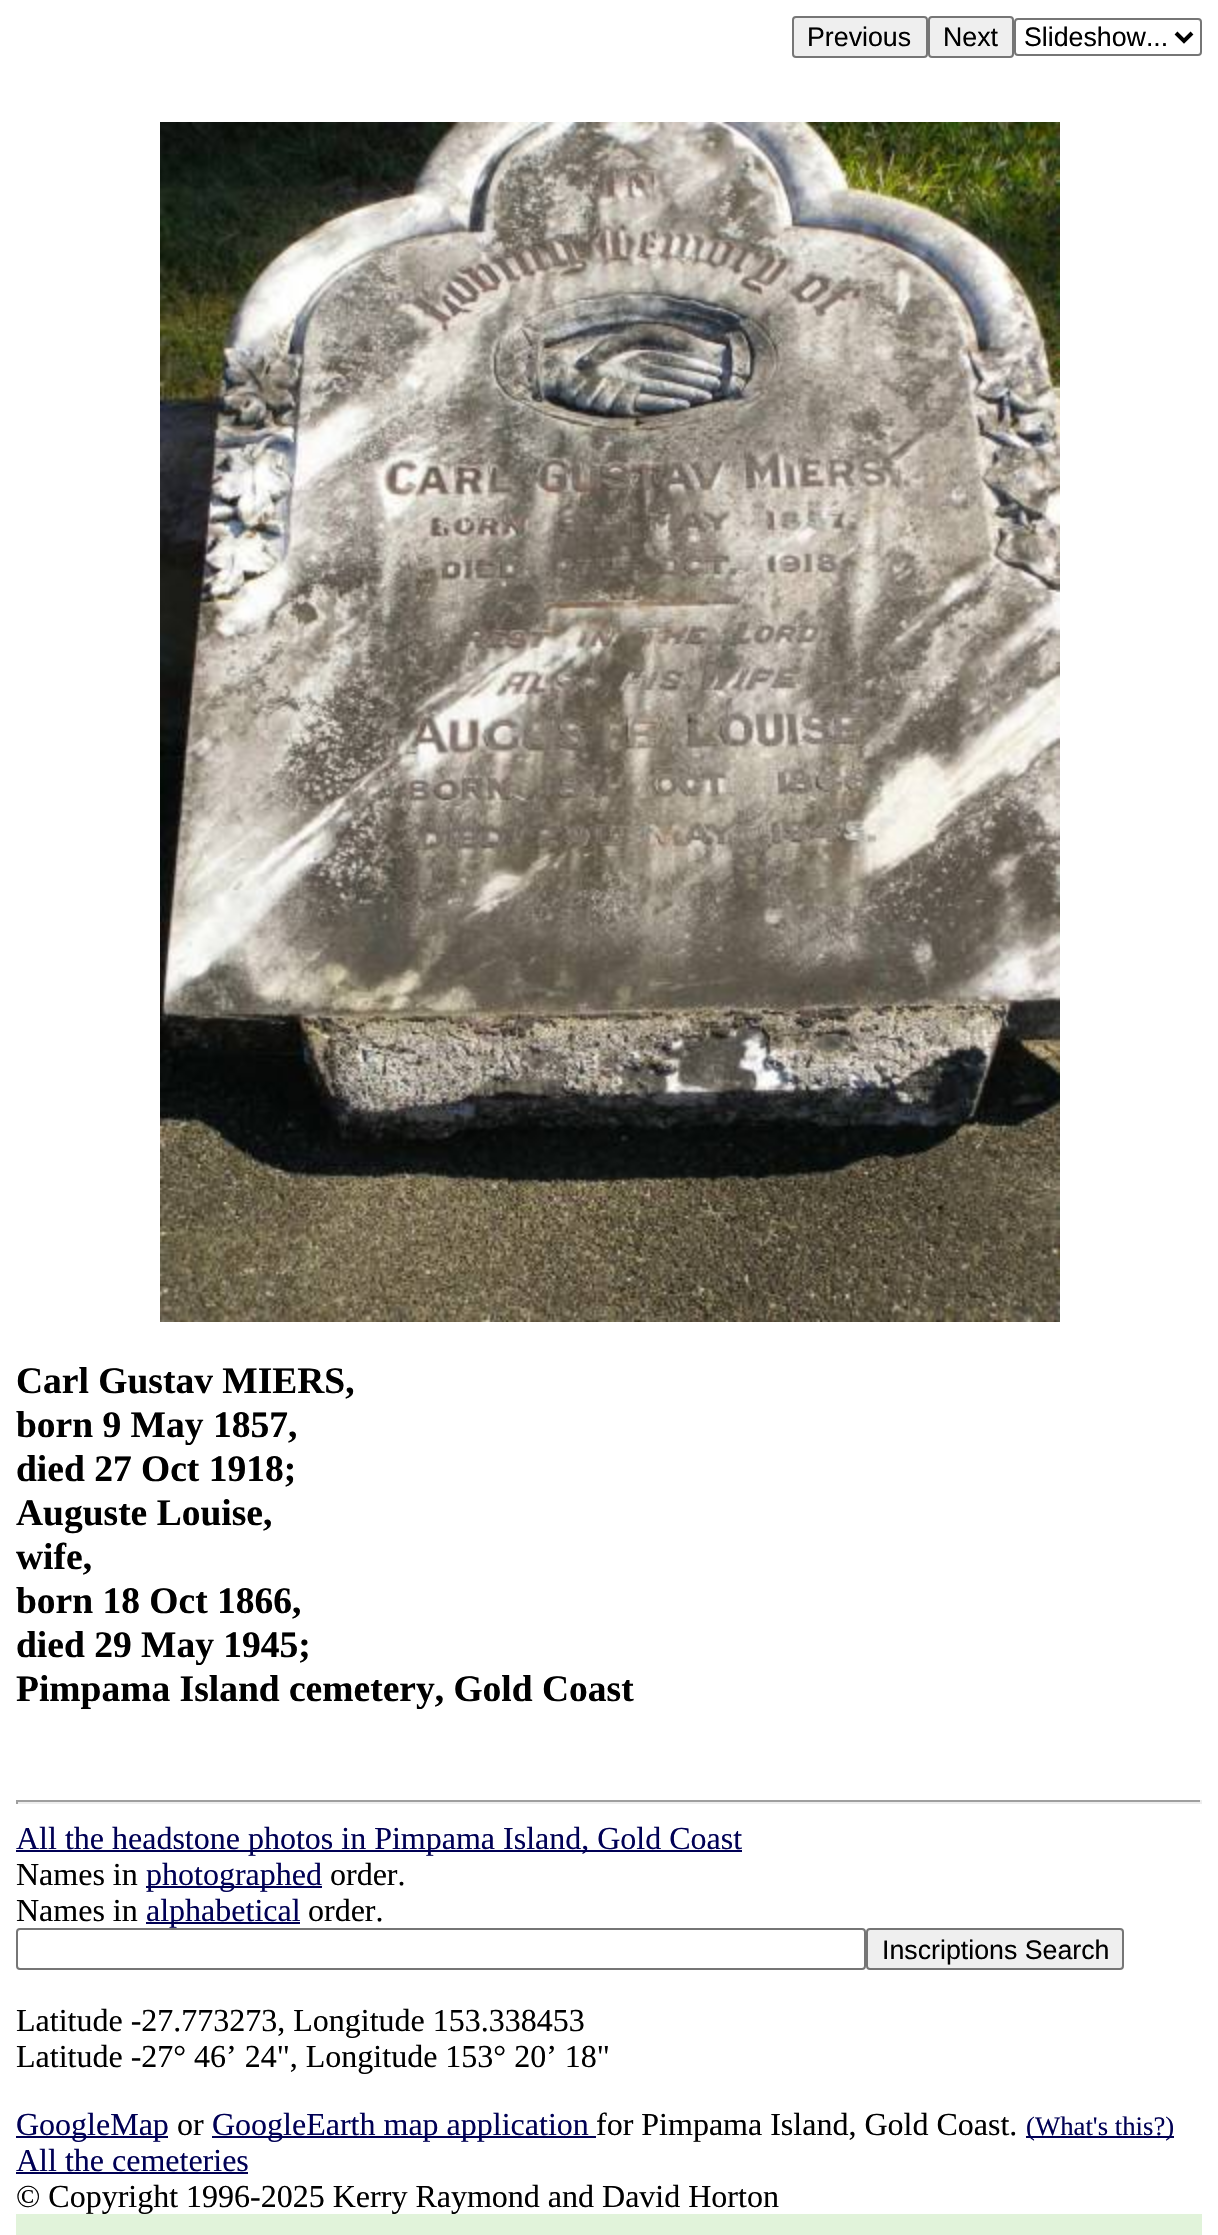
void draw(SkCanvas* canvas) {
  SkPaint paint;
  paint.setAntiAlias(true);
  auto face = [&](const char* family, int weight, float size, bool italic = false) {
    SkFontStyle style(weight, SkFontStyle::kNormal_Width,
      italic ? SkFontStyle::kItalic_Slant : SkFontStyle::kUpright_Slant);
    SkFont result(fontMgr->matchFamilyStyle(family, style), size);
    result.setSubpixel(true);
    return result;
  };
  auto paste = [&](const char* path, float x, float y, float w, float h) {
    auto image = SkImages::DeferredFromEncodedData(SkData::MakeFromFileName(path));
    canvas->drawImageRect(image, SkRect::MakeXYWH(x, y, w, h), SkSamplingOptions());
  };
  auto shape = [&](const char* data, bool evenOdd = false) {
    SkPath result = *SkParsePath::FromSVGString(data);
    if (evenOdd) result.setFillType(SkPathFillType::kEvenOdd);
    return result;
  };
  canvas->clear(0xffffffff);
  paint.setColor(0xffefefef);
  canvas->drawRoundRect(SkRect::MakeXYWH(793, 17, 134, 40), 3, 3, paint);
  paint.setStroke(true);
  paint.setStrokeWidth(2);
  paint.setColor(0xff767676);
  canvas->drawRoundRect(SkRect::MakeXYWH(793, 17, 134, 40), 3, 3, paint);
  paint.setStroke(false);
  paint.setColor(0xffefefef);
  canvas->drawRoundRect(SkRect::MakeXYWH(929, 17, 84, 40), 3, 3, paint);
  paint.setStroke(true);
  paint.setColor(0xff767676);
  canvas->drawRoundRect(SkRect::MakeXYWH(929, 17, 84, 40), 3, 3, paint);
  canvas->drawRoundRect(SkRect::MakeXYWH(1015, 19, 186, 36), 3, 3, paint);
  paint.setStrokeWidth(4);
  paint.setColor(0xff000000);
  canvas->drawPath(shape("M1176 33L1184 41L1192 33"), paint);
  paste("img/1.png", 160, 122, 900, 1200);
  paint.setStroke(false);
  {
    const struct { float x, y, w, h; SkColor color; } items[] = {
      {16, 1800, 1186, 2, 0xff9f9f9f},
      {1200, 1800, 2, 4, 0xffeeeeee},
      {16, 1802, 1186, 2, 0xffeeeeee},
      {16, 1800, 2, 4, 0xff9f9f9f},
      {16, 1850, 726, 2, 0xff000055},
      {146, 1886, 176, 2, 0xff000055},
      {146, 1922, 154, 2, 0xff000055},
    };
    for (auto [x, y, w, h, color] : items) {
      paint.setColor(color);
      canvas->drawRect(SkRect::MakeXYWH(x, y, w, h), paint);
    }
  }
  paint.setStroke(true);
  paint.setStrokeWidth(2);
  paint.setColor(0xff767676);
  canvas->drawRoundRect(SkRect::MakeXYWH(17, 1929, 848, 40), 3, 3, paint);
  paint.setStroke(false);
  paint.setColor(0xffefefef);
  canvas->drawRoundRect(SkRect::MakeXYWH(867, 1929, 256, 40), 3, 3, paint);
  paint.setStroke(true);
  paint.setColor(0xff767676);
  canvas->drawRoundRect(SkRect::MakeXYWH(867, 1929, 256, 40), 3, 3, paint);
  paint.setStroke(false);
  {
    const struct { float x, y, w, h; SkColor color; } items[] = {
      {16, 2136, 152, 2, 0xff000055},
      {212, 2136, 384, 2, 0xff000055},
      {1026, 2136, 148, 2, 0xff000055},
      {16, 2172, 232, 2, 0xff000055},
      {16, 2214, 1186, 21, 0xffe1f3da},
    };
    for (auto [x, y, w, h, color] : items) {
      paint.setColor(color);
      canvas->drawRect(SkRect::MakeXYWH(x, y, w, h), paint);
    }
  }
  auto f0 = face("Liberation Sans", 400, 26.75f);
  paint.setColor(0xff000000);
  {
    const struct { const char* s; float x, y; } items[] = {
      {"Previous", 807, 46},
      {"Next", 943, 46},
      {"Slideshow...", 1024, 46},
    };
    for (auto [s, x, y] : items) {
      canvas->drawString(s, x, y, f0, paint);
    }
  }
  auto f1 = face("Liberation Serif", 700, 37.5f);
  {
    const struct { const char* s; float x, y; } items[] = {
      {"Carl Gustav MIERS,", 16, 1393},
      {"born 9 May 1857,", 16, 1437},
      {"died 27 Oct 1918;", 16, 1481},
      {"Auguste Louise,", 16, 1525},
      {"wife,", 16, 1569},
      {"born 18 Oct 1866,", 16, 1613},
      {"died 29 May 1945;", 16, 1657},
      {"Pimpama Island cemetery, Gold Coast", 16, 1701},
    };
    for (auto [s, x, y] : items) {
      canvas->drawString(s, x, y, f1, paint);
    }
  }
  auto f2 = face("Liberation Serif", 400, 32);
  paint.setColor(0xff000055);
  canvas->drawString("All the headstone photos in Pimpama Island, Gold Coast", 16, 1849, f2, paint);
  paint.setColor(0xff000000);
  canvas->drawString("Names in", 16, 1885, f2, paint);
  paint.setColor(0xff000055);
  canvas->drawString("photographed", 146, 1885, f2, paint);
  paint.setColor(0xff000000);
  canvas->drawString("order.", 330, 1885, f2, paint);
  canvas->drawString("Names in", 16, 1921, f2, paint);
  paint.setColor(0xff000055);
  canvas->drawString("alphabetical", 146, 1921, f2, paint);
  paint.setColor(0xff000000);
  canvas->drawString("order.", 308, 1921, f2, paint);
  canvas->drawString("Inscriptions Search", 882, 1959, f0, paint);
  canvas->drawString("Latitude -27.773273, Longitude 153.338453", 16, 2031, f2, paint);
  canvas->drawString("Latitude -27° 46’ 24\", Longitude 153° 20’ 18\"", 16, 2067, f2, paint);
  paint.setColor(0xff000055);
  canvas->drawString("GoogleMap", 16, 2135, f2, paint);
  paint.setColor(0xff000000);
  canvas->drawString("or", 177, 2135, f2, paint);
  paint.setColor(0xff000055);
  canvas->drawString("GoogleEarth map application", 212, 2135, f2, paint);
  paint.setColor(0xff000000);
  canvas->drawString("for Pimpama Island, Gold Coast.", 596, 2135, f2, paint);
  auto f3 = face("Liberation Serif", 400, 26.75f);
  paint.setColor(0xff000055);
  canvas->drawString("(What's this?)", 1026, 2135, f3, paint);
  canvas->drawString("All the cemeteries", 16, 2171, f2, paint);
  paint.setColor(0xff000000);
  canvas->drawString("© Copyright 1996-2025 Kerry Raymond and David Horton", 16, 2207, f2, paint);
}
